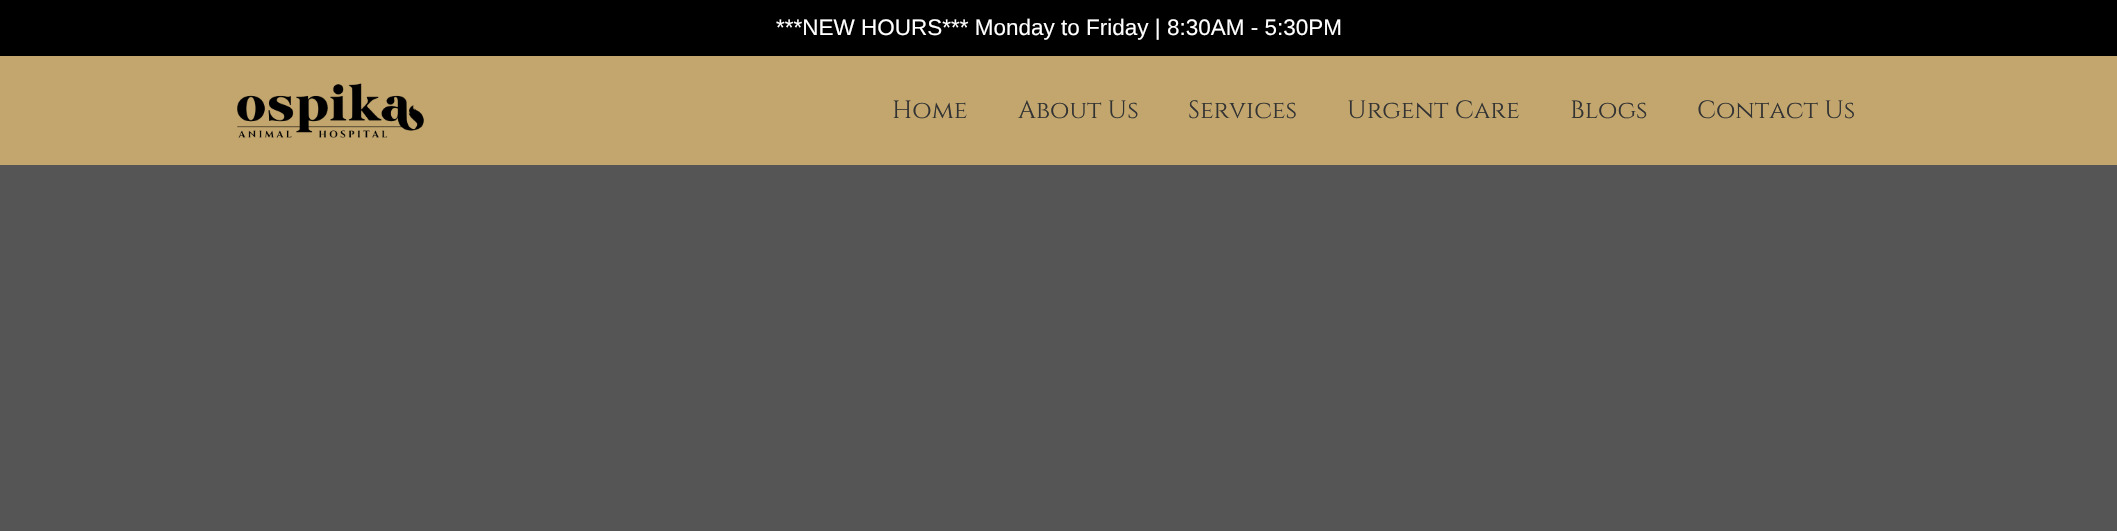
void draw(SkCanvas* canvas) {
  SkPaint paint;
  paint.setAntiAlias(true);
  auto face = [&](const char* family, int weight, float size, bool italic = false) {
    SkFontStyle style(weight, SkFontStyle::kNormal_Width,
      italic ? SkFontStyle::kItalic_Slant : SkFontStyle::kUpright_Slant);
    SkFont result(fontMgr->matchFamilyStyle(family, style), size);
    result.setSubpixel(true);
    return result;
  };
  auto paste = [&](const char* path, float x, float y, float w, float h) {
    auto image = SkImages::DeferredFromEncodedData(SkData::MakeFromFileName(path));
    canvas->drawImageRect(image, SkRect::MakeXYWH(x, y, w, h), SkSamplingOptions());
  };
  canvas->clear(0xffc2a66e);
  paint.setColor(0xff000000);
  canvas->drawRect(SkRect::MakeXYWH(0, 0, 2117, 56), paint);
  paste("img/1.png", 237, 83, 187, 55);
  paint.setColor(0xff555555);
  canvas->drawRect(SkRect::MakeXYWH(0, 165, 2117, 366), paint);
  auto f0 = face("Liberation Sans", 400, 22.5f);
  paint.setColor(0xffffffff);
  canvas->drawString("***NEW HOURS*** Monday to Friday | 8:30AM - 5:30PM", 776, 35, f0, paint);
  auto f1 = face("Cinzel", 400, 25);
  paint.setColor(0xff333333);
  {
    const struct { const char* s; float x, y; } items[] = {
      {"Home", 892, 118},
      {"About Us", 1018, 118},
      {"Services", 1188, 118},
      {"Urgent Care", 1347, 118},
      {"Blogs", 1570, 118},
      {"Contact Us", 1697, 118},
    };
    for (auto [s, x, y] : items) {
      canvas->drawString(s, x, y, f1, paint);
    }
  }
}
